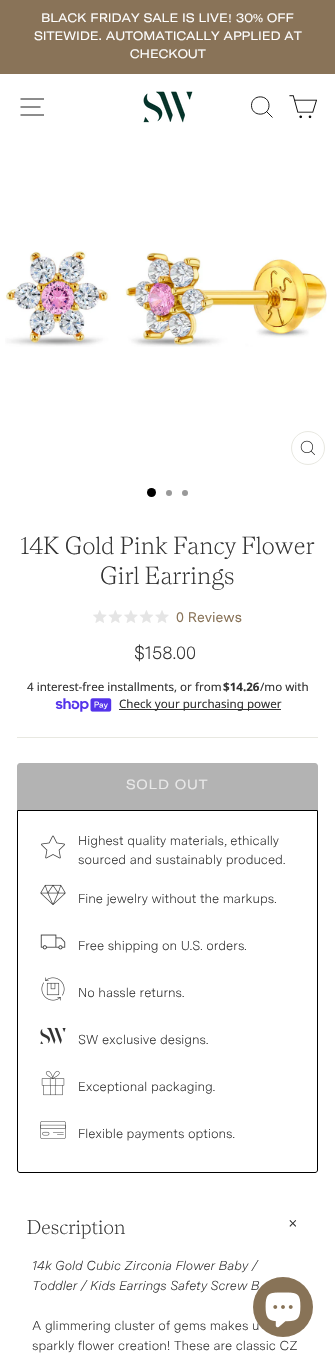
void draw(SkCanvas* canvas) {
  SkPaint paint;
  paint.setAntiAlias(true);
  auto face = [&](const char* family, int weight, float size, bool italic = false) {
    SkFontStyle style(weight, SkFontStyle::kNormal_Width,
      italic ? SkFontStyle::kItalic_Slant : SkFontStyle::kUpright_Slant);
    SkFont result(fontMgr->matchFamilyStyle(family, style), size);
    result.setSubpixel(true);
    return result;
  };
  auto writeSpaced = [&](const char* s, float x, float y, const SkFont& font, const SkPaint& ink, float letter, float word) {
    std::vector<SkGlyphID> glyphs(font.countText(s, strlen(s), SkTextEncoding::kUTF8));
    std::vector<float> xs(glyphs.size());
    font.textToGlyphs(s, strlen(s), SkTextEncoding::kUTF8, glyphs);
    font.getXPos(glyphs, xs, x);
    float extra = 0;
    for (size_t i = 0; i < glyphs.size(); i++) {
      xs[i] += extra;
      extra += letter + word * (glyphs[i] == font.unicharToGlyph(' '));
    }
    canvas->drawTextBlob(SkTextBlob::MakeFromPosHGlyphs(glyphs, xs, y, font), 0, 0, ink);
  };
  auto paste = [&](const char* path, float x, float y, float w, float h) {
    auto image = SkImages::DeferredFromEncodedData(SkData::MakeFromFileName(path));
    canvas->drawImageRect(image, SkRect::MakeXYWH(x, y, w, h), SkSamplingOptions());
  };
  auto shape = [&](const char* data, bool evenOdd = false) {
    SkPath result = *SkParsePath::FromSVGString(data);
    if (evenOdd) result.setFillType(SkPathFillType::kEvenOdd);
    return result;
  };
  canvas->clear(0xffffffff);
  paint.setColor(0xff897358);
  canvas->drawRect(SkRect::MakeXYWH(0, 0, 335, 74), paint);
  paint.setStroke(true);
  paint.setStrokeWidth(0.9f);
  paint.setColor(0xff000000);
  canvas->drawPath(shape("M20.5 99H44M20.5 107H40.5M20.5 115H44"), paint);
  paste("img/1.png", 143, 91, 50, 32);
  canvas->drawPath(shape("M269 105.5C269 117 251.5 117 251.5 105.5C251.5 94 269 94 269 105.5ZM272.5 117.5L266.5 111.5"), paint);
  paste("img/2.png", 289, 95, 28, 24);
  paste("img/3.png", 5, 250, 322, 97);
  paint.setStrokeWidth(1);
  paint.setColor(0xffe8e8e1);
  canvas->drawCircle(308, 448, 16.5f, paint);
  paste("img/4.png", 300, 440, 15, 15);
  paint.setStroke(false);
  paint.setColor(0xff000000);
  canvas->drawCircle(151.5f, 492.5f, 4.5f, paint);
  paint.setColor(0xff999999);
  canvas->drawCircle(169, 493, 3, paint);
  canvas->drawCircle(185, 493, 3, paint);
  paste("img/5.png", 93, 610, 76, 13);
  paste("img/6.png", 55, 698, 57, 14);
  paint.setColor(0xff333333);
  canvas->drawRect(SkRect::MakeXYWH(119, 709, 162, 1), paint);
  paint.setColor(0xffe8e8e1);
  canvas->drawRect(SkRect::MakeXYWH(17, 737, 301, 1), paint);
  paint.setColor(0xffb3b3b3);
  canvas->drawPath(shape("M20 763H315C316.5 763 318 764.5 318 766V810H17V766C17 764.5 18.5 763 20 763Z"), paint);
  paint.setStroke(true);
  paint.setColor(0xff000000);
  canvas->drawPath(shape("M17.5 810.5H317.5V1170C317.5 1171.5 316.5 1172.5 315 1172.5H20C18.5 1172.5 17.5 1171.5 17.5 1170Z"), paint);
  paste("img/7.png", 41, 835, 24, 24);
  paste("img/8.png", 40, 884, 26, 21);
  paste("img/9.png", 40, 934, 26, 16);
  paste("img/10.png", 41, 977, 24, 24);
  paste("img/11.png", 40, 1027, 26, 17);
  paste("img/12.png", 41, 1070, 24, 26);
  paste("img/13.png", 40, 1121, 26, 18);
  auto f0 = face("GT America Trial", 400, 12);
  paint.setStroke(false);
  paint.setColor(0xffffffff);
  canvas->drawString("BLACK FRIDAY SALE IS LIVE", 41, 22, f0, paint);
  auto f1 = face("Liberation Serif", 400, 12);
  canvas->drawString("!", 228, 22, f1, paint);
  canvas->drawString("30", 236, 22, f0, paint);
  canvas->drawString("%", 253, 22, f1, paint);
  {
    const struct { const char* s; float x, y; } items[] = {
      {"OFF", 267, 22},
      {"SITEWIDE. AUTOMATICALLY APPLIED AT", 34, 40},
      {"CHECKOUT", 130, 58},
    };
    for (auto [s, x, y] : items) {
      canvas->drawString(s, x, y, f0, paint);
    }
  }
  auto f2 = face("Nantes", 300, 24.75f);
  paint.setColor(0xff333333);
  canvas->drawString("14K Gold Pink Fancy Flower", 20, 554, f2, paint);
  canvas->drawString("Girl Earrings", 100, 584, f2, paint);
  auto f3 = face("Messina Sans", 400, 14);
  paint.setColor(0xff897358);
  canvas->drawString("0 Reviews", 176, 622, f3, paint);
  auto f4 = face("Messina Sans", 300, 18);
  paint.setColor(0xff333333);
  canvas->drawString("$158.00", 134, 659, f4, paint);
  auto f5 = face("Noto Sans", 400, 11.6f);
  canvas->drawString("4 interest-free installments, or from", 27, 691, f5, paint);
  auto f6 = face("Noto Sans", 700, 11.6f);
  canvas->drawString("$14.26", 223, 691, f6, paint);
  canvas->drawString("/mo with", 260, 691, f5, paint);
  canvas->drawString("Check your purchasing power", 119, 708, f5, paint);
  auto f7 = face("GT America Trial", 400, 13);
  paint.setColor(0xffe9e9e9);
  writeSpaced("SOLD OUT", 126, 789, f7, paint, 1, 0);
  auto f8 = face("Messina Sans", 300, 13);
  paint.setColor(0xff333333);
  {
    const struct { const char* s; float x, y; } items[] = {
      {"Highest quality materials, ethically", 78, 845},
      {"sourced and sustainably produced.", 78, 864},
      {"Fine jewelry without the markups.", 78, 903},
      {"Free shipping on U.S. orders.", 78, 950},
      {"No hassle returns.", 78, 997},
      {"SW exclusive designs.", 78, 1044},
      {"Exceptional packaging.", 78, 1091},
      {"Flexible payments options.", 78, 1138},
    };
    for (auto [s, x, y] : items) {
      canvas->drawString(s, x, y, f8, paint);
    }
  }
  auto f9 = face("Nantes", 300, 20);
  canvas->drawString("Description", 27, 1234, f9, paint);
  auto f10 = face("Liberation Serif", 400, 18);
  canvas->save();
  canvas->rotate(45, 285, 1224);
  canvas->drawString("+", 285, 1224, f10, paint);
  canvas->restore();
  auto f11 = face("Messina Sans", 300, 13, true);
  canvas->drawString("14k Gold Cubic Zirconia Flower Baby /", 32, 1270, f11, paint);
  canvas->drawString("Toddler / Kids Earrings Safety Screw B", 32, 1290, f11, paint);
  canvas->drawString("A glimmering cluster of gems makes u", 32, 1330, f8, paint);
  canvas->drawString("sparkly flower creation! These are classic CZ", 32, 1350, f8, paint);
  paint.setColor(0xff887357);
  canvas->drawCircle(283, 1307, 30, paint);
  paste("img/14.png", 265, 1292, 36, 36);
}
